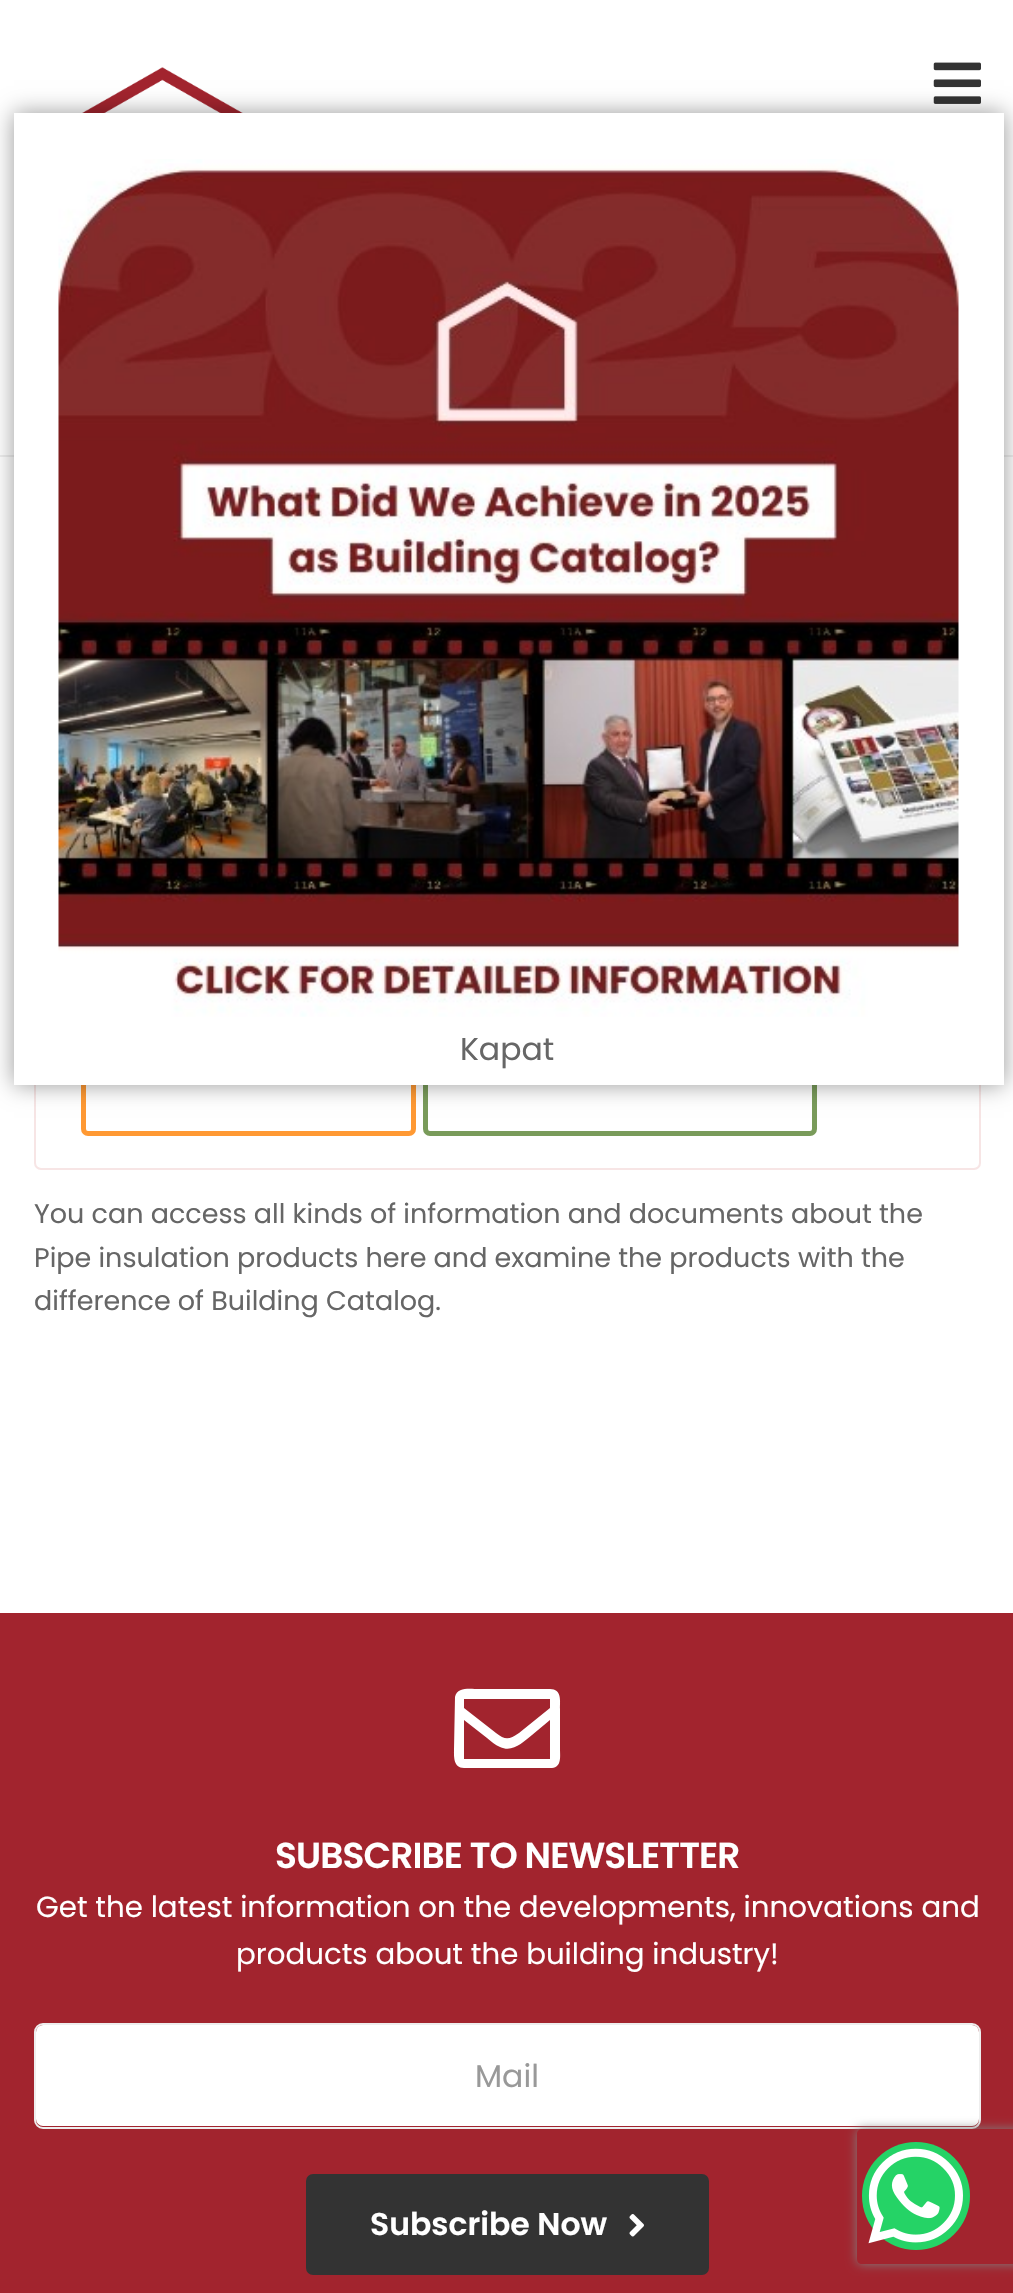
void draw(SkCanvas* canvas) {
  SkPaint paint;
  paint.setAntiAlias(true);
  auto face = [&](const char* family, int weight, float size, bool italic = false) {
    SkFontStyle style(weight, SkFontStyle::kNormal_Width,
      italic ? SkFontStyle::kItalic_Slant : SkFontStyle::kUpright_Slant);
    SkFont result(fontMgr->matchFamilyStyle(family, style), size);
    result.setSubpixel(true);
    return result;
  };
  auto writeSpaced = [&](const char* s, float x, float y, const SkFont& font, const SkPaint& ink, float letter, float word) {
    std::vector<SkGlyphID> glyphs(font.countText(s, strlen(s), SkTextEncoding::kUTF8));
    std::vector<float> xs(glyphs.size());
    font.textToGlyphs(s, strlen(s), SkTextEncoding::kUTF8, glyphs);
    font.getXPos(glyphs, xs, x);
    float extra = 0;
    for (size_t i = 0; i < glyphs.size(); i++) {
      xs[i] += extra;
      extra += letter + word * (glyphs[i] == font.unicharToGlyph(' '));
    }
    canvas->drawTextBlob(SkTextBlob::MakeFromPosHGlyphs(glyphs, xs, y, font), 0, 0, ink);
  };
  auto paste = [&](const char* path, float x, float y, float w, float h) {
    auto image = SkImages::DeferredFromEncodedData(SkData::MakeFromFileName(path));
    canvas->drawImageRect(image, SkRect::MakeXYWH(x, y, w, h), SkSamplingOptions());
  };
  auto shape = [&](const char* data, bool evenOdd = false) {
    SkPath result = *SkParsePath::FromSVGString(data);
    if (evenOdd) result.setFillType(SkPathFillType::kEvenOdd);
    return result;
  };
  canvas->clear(0xffffffff);
  paint.setColor(0xffeeeeee);
  canvas->drawRect(SkRect::MakeXYWH(0, 455, 1013, 2), paint);
  paste("img/1.png", 82, 67, 161, 46);
  paste("img/2.png", 933, 62, 48, 42);
  paint.setStroke(true);
  paint.setStrokeWidth(2);
  paint.setColor(0xfff7e5e5);
  canvas->drawRoundRect(SkRect::MakeXYWH(35, 728, 945, 441), 6, 6, paint);
  paint.setStrokeWidth(5);
  paint.setColor(0xffff9933);
  canvas->drawRoundRect(SkRect::MakeXYWH(83.5f, 1039.5f, 330, 94), 4.5f, 4.5f, paint);
  paint.setColor(0xff799b5a);
  canvas->drawRoundRect(SkRect::MakeXYWH(425.5f, 1039.5f, 389, 94), 4.5f, 4.5f, paint);
  paint.setStroke(false);
  paint.setColor(0x66000000);
  paint.setMaskFilter(SkMaskFilter::MakeBlur(kNormal_SkBlurStyle, 11));
  canvas->drawRect(SkRect::MakeXYWH(14, 113, 990, 972), paint);
  paint.setMaskFilter(nullptr);
  paint.setColor(0xffffffff);
  canvas->drawRect(SkRect::MakeXYWH(14, 113, 990, 972), paint);
  paste("img/3.png", 58, 159, 901, 858);
  paint.setColor(0xffa2242e);
  canvas->drawRect(SkRect::MakeXYWH(0, 1613, 1013, 680), paint);
  paint.setColor(0xffffffff);
  canvas->drawPath(shape("M550 1689C562 1689 560 1701 560 1709V1749C560 1756 562 1767 552 1768H464C453 1768 454 1756 454 1749L455 1697C457 1686 472 1689 479 1689ZM550 1699H464V1708L496 1733C505 1740 509 1740 519 1733L550 1708ZM464 1759H550V1720L532 1735C523 1742 513 1753 500 1747C495 1745 491 1741 487 1738L464 1720Z"), paint);
  canvas->drawRoundRect(SkRect::MakeXYWH(36, 2025, 943, 101), 7, 7, paint);
  paint.setStroke(true);
  paint.setStrokeWidth(2);
  paint.setColor(0xffeeeeee);
  canvas->drawRoundRect(SkRect::MakeXYWH(35, 2024, 945, 104), 8, 8, paint);
  paint.setStroke(false);
  paint.setColor(0xff333333);
  canvas->drawRoundRect(SkRect::MakeXYWH(308.5f, 2176.5f, 398, 96), 4.5f, 4.5f, paint);
  paint.setStroke(true);
  paint.setStrokeWidth(5);
  canvas->drawRoundRect(SkRect::MakeXYWH(308.5f, 2176.5f, 398, 96), 4.5f, 4.5f, paint);
  paste("img/4.png", 629, 2214, 15, 23);
  canvas->save();
  canvas->clipPath(shape("M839 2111H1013V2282H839ZM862 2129H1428C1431 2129 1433 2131 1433 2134V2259C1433 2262 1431 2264 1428 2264H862C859 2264 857 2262 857 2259V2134C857 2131 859 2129 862 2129Z", true), true);
  paint.setStroke(false);
  paint.setColor(0xff808080);
  paint.setMaskFilter(SkMaskFilter::MakeBlur(kNormal_SkBlurStyle, 5.5f));
  canvas->drawRoundRect(SkRect::MakeXYWH(857, 2129, 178, 135), 5, 5, paint);
  paint.setMaskFilter(nullptr);
  canvas->restore();
  paint.setColor(0xff25d366);
  canvas->drawCircle(916, 2196, 54, paint);
  paste("img/5.png", 868, 2148, 95, 96);
  auto f0 = face("Poppins", 400, 31.5f);
  paint.setColor(0xff666666);
  canvas->drawString("Kapat", 460, 1060, f0, paint);
  auto f1 = face("Poppins", 400, 27);
  {
    const struct { const char* s; float x, y; } items[] = {
      {"You can access all kinds of information and documents about the", 34, 1223},
      {"Pipe insulation products here and examine the products with the", 34, 1267},
      {"difference of Building Catalog.", 34, 1310},
    };
    for (auto [s, x, y] : items) {
      canvas->drawString(s, x, y, f1, paint);
    }
  }
  auto f2 = face("Poppins", 600, 36);
  paint.setColor(0xffffffff);
  writeSpaced("SUBSCRIBE TO NEWSLETTER", 275, 1868, f2, paint, -0.9f, 0);
  auto f3 = face("Poppins", 400, 29.25f);
  canvas->drawString("Get the latest information on the developments, innovations and", 36, 1917, f3, paint);
  canvas->drawString("products about the building industry!", 236, 1964, f3, paint);
  paint.setColor(0xff999999);
  canvas->drawString("Mail", 475, 2087, f0, paint);
  auto f4 = face("Poppins", 600, 31.5f);
  paint.setColor(0xffffffff);
  canvas->drawString("Subscribe Now", 370, 2235, f4, paint);
}
